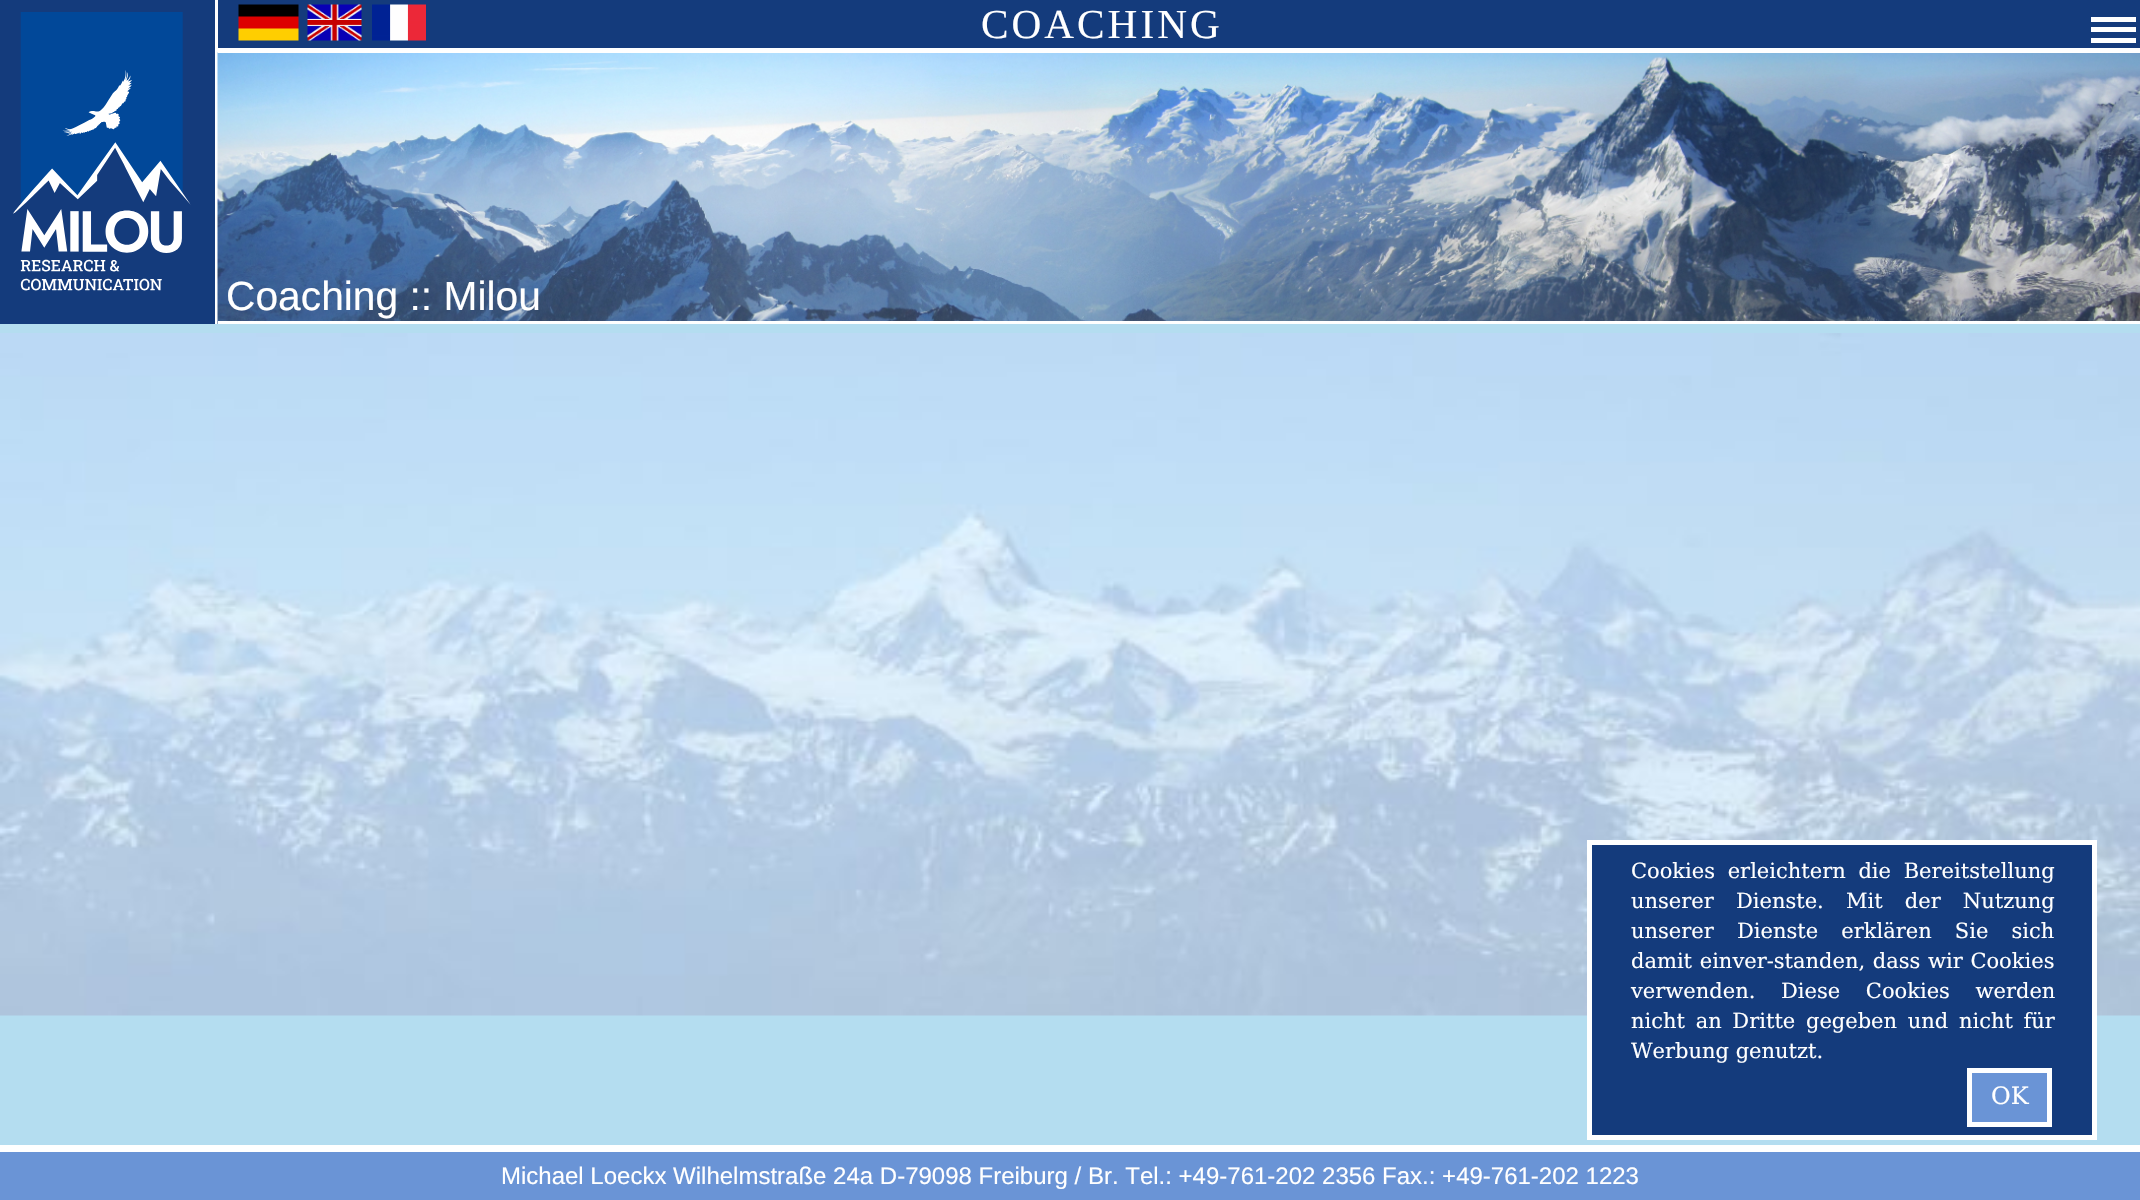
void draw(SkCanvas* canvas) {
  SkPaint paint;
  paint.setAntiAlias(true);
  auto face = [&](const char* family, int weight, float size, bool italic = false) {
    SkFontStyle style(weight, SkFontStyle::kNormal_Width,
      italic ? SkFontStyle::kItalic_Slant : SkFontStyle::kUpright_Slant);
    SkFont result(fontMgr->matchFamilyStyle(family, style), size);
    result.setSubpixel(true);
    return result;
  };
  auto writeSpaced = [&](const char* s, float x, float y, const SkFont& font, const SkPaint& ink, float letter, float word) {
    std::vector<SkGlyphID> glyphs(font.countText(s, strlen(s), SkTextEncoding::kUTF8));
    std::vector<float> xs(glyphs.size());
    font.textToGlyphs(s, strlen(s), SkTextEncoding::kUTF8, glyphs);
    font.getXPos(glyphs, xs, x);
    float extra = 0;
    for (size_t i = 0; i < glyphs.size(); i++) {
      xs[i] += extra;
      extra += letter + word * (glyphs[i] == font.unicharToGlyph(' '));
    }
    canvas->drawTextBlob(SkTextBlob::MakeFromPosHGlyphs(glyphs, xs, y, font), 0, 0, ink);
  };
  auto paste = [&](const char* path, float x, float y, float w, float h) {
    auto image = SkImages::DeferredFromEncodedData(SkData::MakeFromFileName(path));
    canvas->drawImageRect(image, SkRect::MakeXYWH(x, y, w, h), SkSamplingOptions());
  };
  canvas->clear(0xffb4ddf0);
  paint.setColor(0xff143b7c);
  canvas->drawRect(SkRect::MakeXYWH(0, 0, 2140, 324), paint);
  paint.setColor(0xffffffff);
  canvas->drawRect(SkRect::MakeXYWH(215, 0, 3, 324), paint);
  paste("img/1.png", 13, 12, 178, 279);
  paste("img/2.png", 238, 4, 61, 37);
  paste("img/3.png", 307, 4, 55, 37);
  paste("img/4.png", 372, 4, 54, 37);
  {
    const struct { float x, y, w, h; SkColor color; } items[] = {
      {2091, 17, 45, 5, 0xffffffff},
      {2091, 27, 45, 5, 0xffffffff},
      {2091, 38, 45, 5, 0xffffffff},
    };
    for (auto [x, y, w, h, color] : items) {
      paint.setColor(color);
      canvas->drawRect(SkRect::MakeXYWH(x, y, w, h), paint);
    }
  }
  paste("img/5.png", 217, 52, 1923, 272);
  canvas->drawRect(SkRect::MakeXYWH(218, 48, 1922, 5), paint);
  canvas->drawRect(SkRect::MakeXYWH(218, 321, 1922, 3), paint);
  paste("img/6.png", 0, 333, 2140, 683);
  paint.setColor(0xff6a94d6);
  canvas->drawRect(SkRect::MakeXYWH(0, 1152, 2140, 48), paint);
  paint.setColor(0xffffffff);
  canvas->drawRect(SkRect::MakeXYWH(0, 1145, 2140, 7), paint);
  paint.setColor(0xff143b7c);
  canvas->drawRect(SkRect::MakeXYWH(1589.5f, 842.5f, 505, 295), paint);
  paint.setStroke(true);
  paint.setStrokeWidth(5);
  paint.setColor(0xffffffff);
  canvas->drawRect(SkRect::MakeXYWH(1589.5f, 842.5f, 505, 295), paint);
  paint.setStroke(false);
  paint.setColor(0xff6a94d6);
  canvas->drawRect(SkRect::MakeXYWH(1969.5f, 1070.5f, 80, 54), paint);
  paint.setStroke(true);
  paint.setColor(0xffffffff);
  canvas->drawRect(SkRect::MakeXYWH(1969.5f, 1070.5f, 80, 54), paint);
  auto f0 = face("Liberation Serif", 400, 41.25f);
  paint.setStroke(false);
  writeSpaced("COACHING", 981, 38, f0, paint, 3, 0);
  auto f1 = face("Liberation Sans", 400, 40.75f);
  canvas->drawString("Coaching :: Milou", 226, 310, f1, paint);
  auto f2 = face("Liberation Sans", 400, 24);
  canvas->drawString("Michael Loeckx Wilhelmstraße 24a D-79098 Freiburg / Br. Tel.: +49-761-202 2356 Fax.: +49-761-202 1223", 501, 1184, f2, paint);
  auto f3 = face("DejaVu Serif", 400, 21);
  writeSpaced("Cookies erleichtern die Bereitstellung", 1631, 878, f3, paint, 0, 6);
  writeSpaced("unserer Dienste. Mit der Nutzung", 1631, 908, f3, paint, 0, 15.5f);
  writeSpaced("unserer Dienste erklären Sie sich", 1631, 938, f3, paint, 0, 16.5f);
  writeSpaced("damit einver-standen, dass wir Cookies", 1631, 968, f3, paint, 0, 1);
  writeSpaced("verwenden. Diese Cookies werden", 1631, 998, f3, paint, 0, 19);
  writeSpaced("nicht an Dritte gegeben und nicht für", 1631, 1028, f3, paint, 0, 4);
  canvas->drawString("Werbung genutzt.", 1631, 1058, f3, paint);
  auto f4 = face("DejaVu Serif", 400, 24);
  canvas->drawString("OK", 1991, 1104, f4, paint);
}
